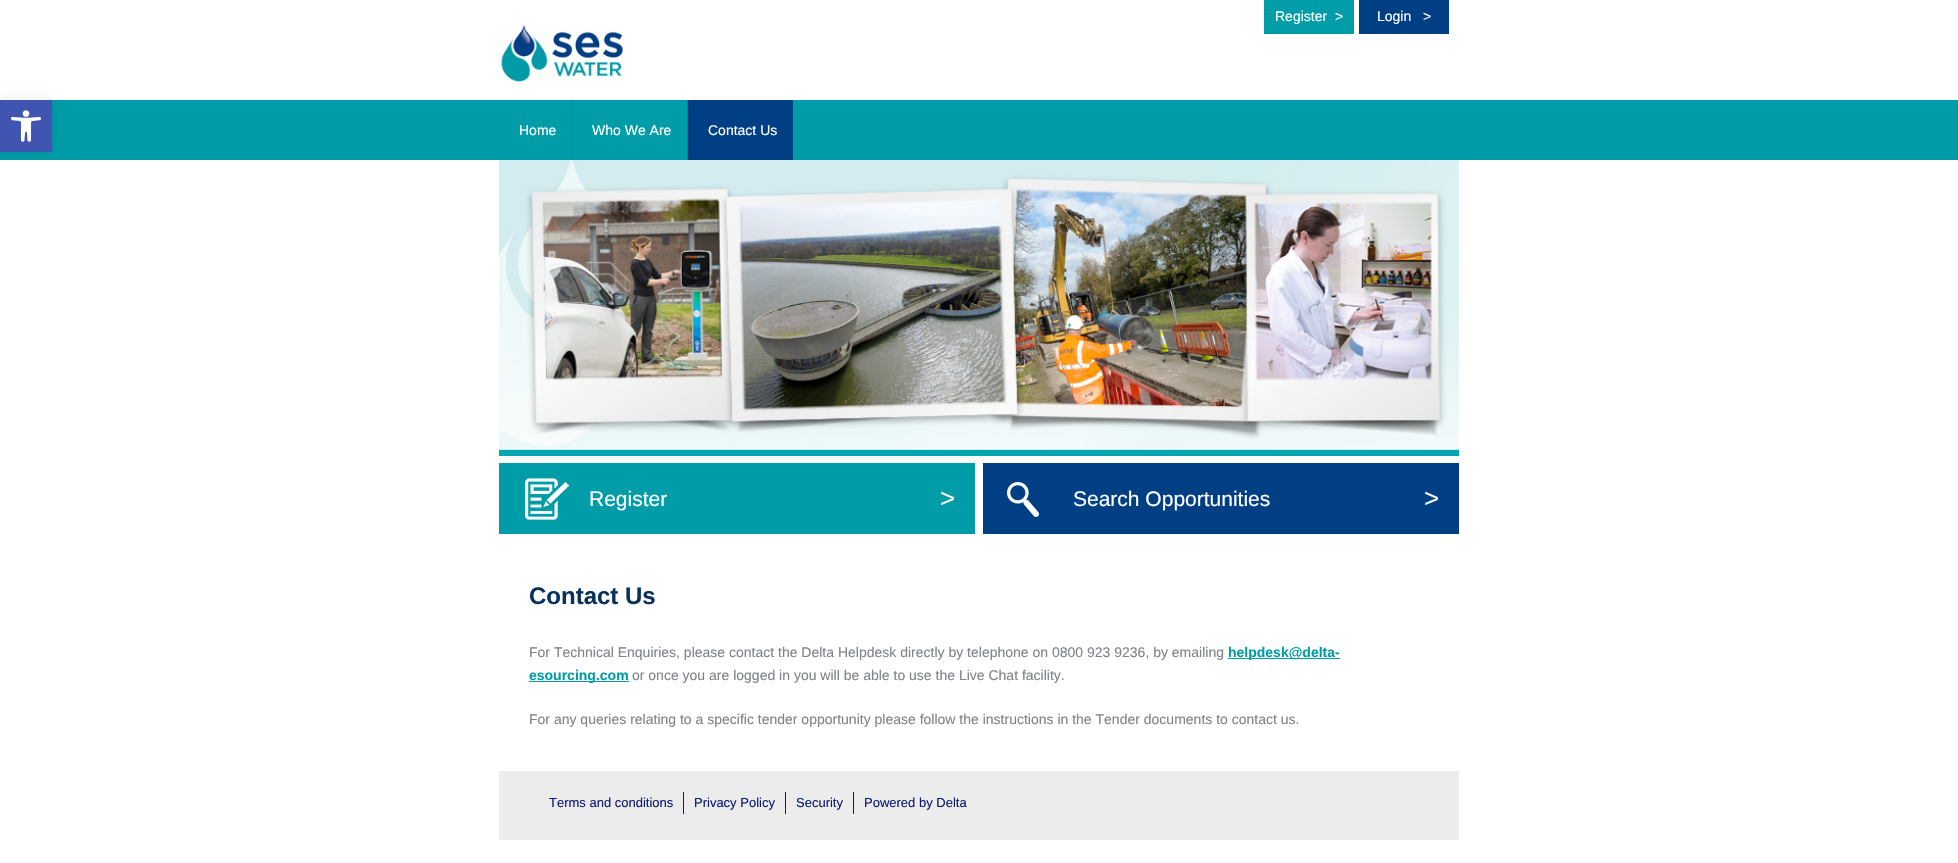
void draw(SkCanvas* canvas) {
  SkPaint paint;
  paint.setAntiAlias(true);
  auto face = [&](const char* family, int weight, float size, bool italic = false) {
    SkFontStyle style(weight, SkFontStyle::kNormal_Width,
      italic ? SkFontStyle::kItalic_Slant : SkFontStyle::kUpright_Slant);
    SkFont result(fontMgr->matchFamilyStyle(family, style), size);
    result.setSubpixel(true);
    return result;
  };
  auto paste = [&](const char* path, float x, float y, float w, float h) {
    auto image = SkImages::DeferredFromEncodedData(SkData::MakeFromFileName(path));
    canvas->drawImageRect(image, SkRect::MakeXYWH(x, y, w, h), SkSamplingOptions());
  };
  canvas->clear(0xffffffff);
  paint.setColor(0xff009ca7);
  canvas->drawRect(SkRect::MakeXYWH(0, 100, 1958, 60), paint);
  paint.setColor(0x1a000000);
  paint.setMaskFilter(SkMaskFilter::MakeBlur(kNormal_SkBlurStyle, 5));
  canvas->drawRect(SkRect::MakeXYWH(0, 100, 52, 52), paint);
  paint.setMaskFilter(nullptr);
  paint.setColor(0xff4054b2);
  canvas->drawRect(SkRect::MakeXYWH(0, 100, 52, 52), paint);
  paste("img/1.png", 11, 110, 30, 32);
  paint.setColor(0xff009ca7);
  canvas->drawRect(SkRect::MakeXYWH(1264, 0, 90, 34), paint);
  paint.setColor(0xff003f84);
  canvas->drawRect(SkRect::MakeXYWH(1359, 0, 90, 34), paint);
  paste("img/2.png", 501, 25, 122, 57);
  {
    const struct { float x, y, w, h; SkColor color; } items[] = {
      {571, 100, 1, 60, 0xff008c96},
      {687, 100, 1, 60, 0xff008c96},
      {688, 100, 105, 60, 0xff003f84},
    };
    for (auto [x, y, w, h, color] : items) {
      paint.setColor(color);
      canvas->drawRect(SkRect::MakeXYWH(x, y, w, h), paint);
    }
  }
  paste("img/3.png", 499, 160, 960, 296);
  paint.setColor(0xff009ca7);
  canvas->drawRect(SkRect::MakeXYWH(499, 463, 476, 71), paint);
  paste("img/4.png", 525, 478, 44, 42);
  paint.setColor(0xff003f84);
  canvas->drawRect(SkRect::MakeXYWH(983, 463, 476, 71), paint);
  paste("img/5.png", 1007, 482, 32, 35);
  {
    const struct { float x, y, w, h; SkColor color; } items[] = {
      {1228, 658, 112, 1, 0xff009ca7},
      {529, 681, 100, 1, 0xff009ca7},
      {499, 771, 960, 69, 0xffececec},
      {683, 792, 1, 22, 0xff0c1975},
      {785, 792, 1, 22, 0xff0c1975},
      {853, 792, 1, 22, 0xff0c1975},
    };
    for (auto [x, y, w, h, color] : items) {
      paint.setColor(color);
      canvas->drawRect(SkRect::MakeXYWH(x, y, w, h), paint);
    }
  }
  auto f0 = face("Liberation Sans", 400, 14);
  paint.setColor(0xffffffff);
  {
    const struct { const char* s; float x, y; } items[] = {
      {"Register", 1275, 21},
      {">", 1335, 21},
      {"Login", 1377, 21},
      {">", 1423, 21},
      {"Home", 519, 135},
      {"Who We Are", 592, 135},
      {"Contact Us", 708, 135},
    };
    for (auto [s, x, y] : items) {
      canvas->drawString(s, x, y, f0, paint);
    }
  }
  auto f1 = face("Liberation Sans", 400, 21);
  canvas->drawString("Register", 589, 506, f1, paint);
  auto f2 = face("Liberation Sans", 400, 26);
  canvas->drawString(">", 940, 507, f2, paint);
  canvas->drawString("Search Opportunities", 1073, 506, f1, paint);
  canvas->drawString(">", 1424, 507, f2, paint);
  auto f3 = face("Liberation Sans", 700, 24);
  paint.setColor(0xff09315b);
  canvas->drawString("Contact Us", 529, 604, f3, paint);
  paint.setColor(0xff808285);
  canvas->drawString("For Technical Enquiries, please contact the Delta Helpdesk directly by telephone on 0800 923 9236, by emailing", 529, 657, f0, paint);
  auto f4 = face("Liberation Sans", 700, 14);
  paint.setColor(0xff009ca7);
  canvas->drawString("helpdesk@delta-", 1228, 657, f4, paint);
  canvas->drawString("esourcing.com", 529, 680, f4, paint);
  paint.setColor(0xff808285);
  canvas->drawString("or once you are logged in you will be able to use the Live Chat facility.", 632, 680, f0, paint);
  canvas->drawString("For any queries relating to a specific tender opportunity please follow the instructions in the Tender documents to contact us.", 529, 724, f0, paint);
  auto f5 = face("Liberation Sans", 400, 13);
  paint.setColor(0xff0c1975);
  {
    const struct { const char* s; float x, y; } items[] = {
      {"Terms and conditions", 549, 807},
      {"Privacy Policy", 694, 807},
      {"Security", 796, 807},
      {"Powered by Delta", 864, 807},
    };
    for (auto [s, x, y] : items) {
      canvas->drawString(s, x, y, f5, paint);
    }
  }
}
